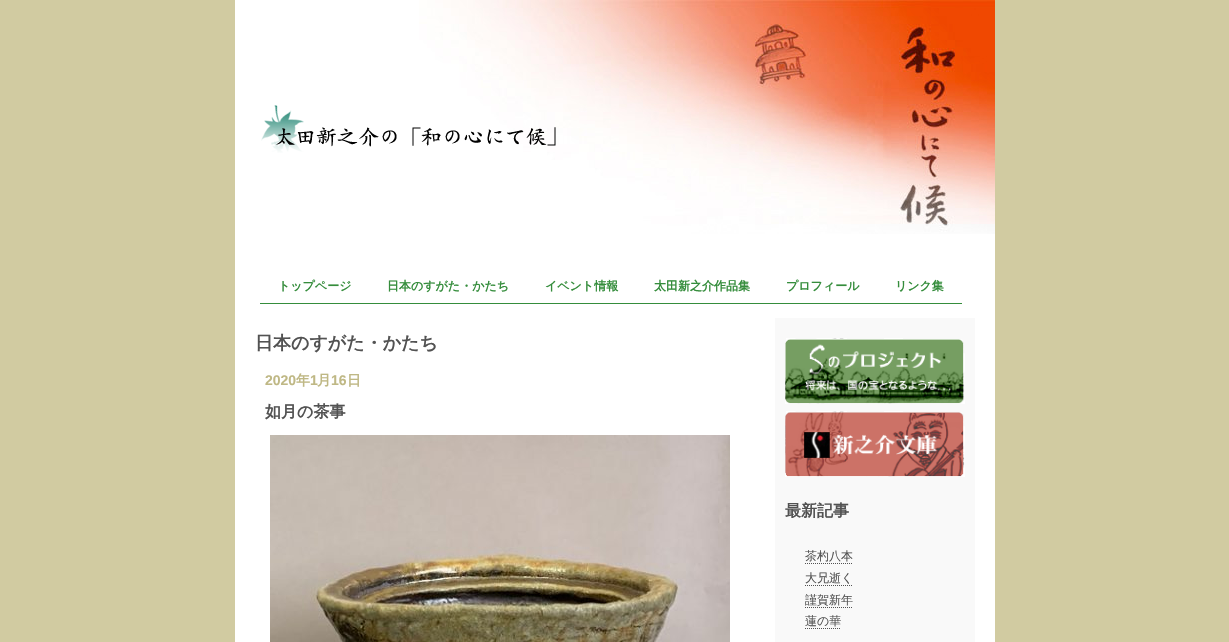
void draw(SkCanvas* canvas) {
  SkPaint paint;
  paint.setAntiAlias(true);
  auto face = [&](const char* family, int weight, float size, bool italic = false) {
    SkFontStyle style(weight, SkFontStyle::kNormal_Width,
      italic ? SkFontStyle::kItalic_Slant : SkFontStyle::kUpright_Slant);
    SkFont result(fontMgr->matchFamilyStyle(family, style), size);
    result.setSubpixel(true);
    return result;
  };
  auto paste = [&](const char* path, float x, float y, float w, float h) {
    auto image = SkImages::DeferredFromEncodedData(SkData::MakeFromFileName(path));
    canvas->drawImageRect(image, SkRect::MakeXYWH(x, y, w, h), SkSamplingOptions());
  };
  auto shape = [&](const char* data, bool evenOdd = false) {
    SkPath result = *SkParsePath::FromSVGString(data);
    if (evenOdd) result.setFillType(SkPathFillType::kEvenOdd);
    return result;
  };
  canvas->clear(0xffd1cba1);
  paint.setColor(0xffffffff);
  canvas->drawRect(SkRect::MakeXYWH(235, 0, 760, 642), paint);
  paste("img/2.png", 419, 0, 576, 234);
  paste("img/1.png", 261, 105, 295, 48);
  paint.setColor(0xff358d3c);
  canvas->drawRect(SkRect::MakeXYWH(260, 303, 702, 1), paint);
  paste("img/3.png", 270, 435, 460, 207);
  paint.setColor(0xfff9f9f9);
  canvas->drawRect(SkRect::MakeXYWH(775, 318, 200, 324), paint);
  paste("img/4.png", 785, 338, 180, 66);
  paste("img/5.png", 785, 411, 180, 66);
  paint.setStroke(true);
  paint.setStrokeWidth(1);
  paint.setColor(0xff525252);
  paint.setPathEffect(SkDashPathEffect::Make({{1, 1}}, 0));
  canvas->drawPath(shape("M805 563.5H853"), paint);
  paint.setPathEffect(nullptr);
  paint.setPathEffect(SkDashPathEffect::Make({{1, 1}}, 0));
  canvas->drawPath(shape("M805 585.5H853"), paint);
  paint.setPathEffect(nullptr);
  paint.setPathEffect(SkDashPathEffect::Make({{1, 1}}, 0));
  canvas->drawPath(shape("M805 607.5H853"), paint);
  paint.setPathEffect(nullptr);
  paint.setPathEffect(SkDashPathEffect::Make({{1, 1}}, 0));
  canvas->drawPath(shape("M805 628.5H841"), paint);
  paint.setPathEffect(nullptr);
  auto f0 = face("WenQuanYi Zen Hei", 700, 12);
  paint.setStroke(false);
  paint.setColor(0xff358d3c);
  {
    const struct { const char* s; float x, y; } items[] = {
      {"トップページ", 278, 290},
      {"日本のすがた・かたち", 387, 290},
      {"イベント情報", 545, 290},
      {"太田新之介作品集", 654, 290},
      {"プロフィール", 786, 290},
      {"リンク集", 895, 290},
    };
    for (auto [s, x, y] : items) {
      canvas->drawString(s, x, y, f0, paint);
    }
  }
  auto f1 = face("WenQuanYi Zen Hei", 700, 18);
  paint.setColor(0xff525252);
  canvas->drawString("日本のすがた・かたち", 255, 349, f1, paint);
  auto f2 = face("Liberation Sans", 700, 14);
  paint.setColor(0xffbfb885);
  canvas->drawString("2020", 265, 385, f2, paint);
  auto f3 = face("WenQuanYi Zen Hei", 700, 14);
  canvas->drawString("年", 296, 385, f3, paint);
  canvas->drawString("1", 310, 385, f2, paint);
  canvas->drawString("月", 317, 385, f3, paint);
  canvas->drawString("16", 331, 385, f2, paint);
  canvas->drawString("日", 347, 385, f3, paint);
  auto f4 = face("WenQuanYi Zen Hei", 700, 16);
  paint.setColor(0xff525252);
  canvas->drawString("如月の茶事", 265, 417, f4, paint);
  canvas->drawString("最新記事", 785, 516, f4, paint);
  auto f5 = face("WenQuanYi Zen Hei", 500, 12);
  {
    const struct { const char* s; float x, y; } items[] = {
      {"茶杓八本", 805, 560},
      {"大兄逝く", 805, 582},
      {"謹賀新年", 805, 604},
      {"蓮の華", 805, 625},
    };
    for (auto [s, x, y] : items) {
      canvas->drawString(s, x, y, f5, paint);
    }
  }
}
